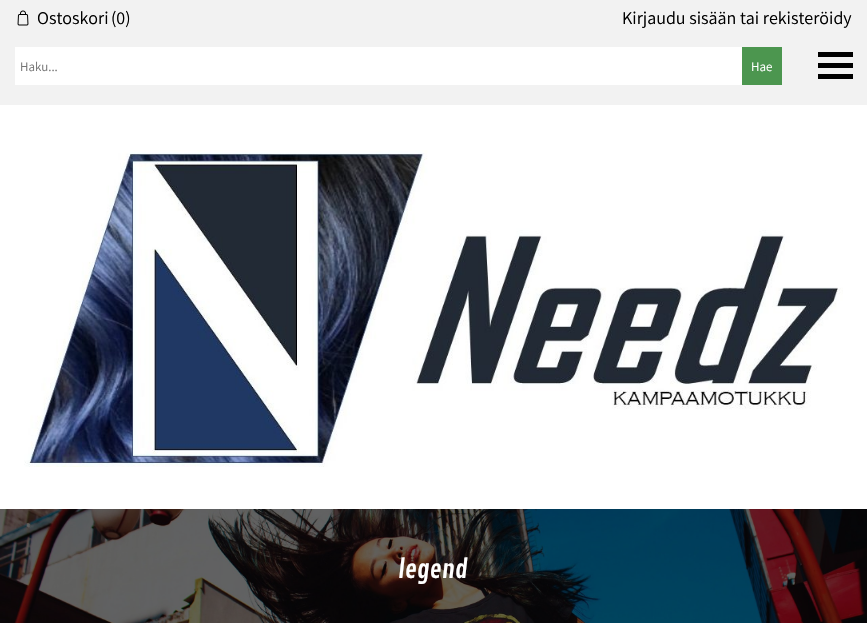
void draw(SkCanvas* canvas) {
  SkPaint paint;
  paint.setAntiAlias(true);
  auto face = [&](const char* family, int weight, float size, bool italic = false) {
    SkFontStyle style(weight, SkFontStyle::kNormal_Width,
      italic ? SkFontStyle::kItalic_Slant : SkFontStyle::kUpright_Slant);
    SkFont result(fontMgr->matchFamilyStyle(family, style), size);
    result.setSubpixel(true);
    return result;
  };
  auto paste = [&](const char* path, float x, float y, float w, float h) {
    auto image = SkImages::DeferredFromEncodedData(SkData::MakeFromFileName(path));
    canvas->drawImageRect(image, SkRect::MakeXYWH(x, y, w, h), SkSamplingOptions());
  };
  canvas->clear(0xffffffff);
  paint.setColor(0xfff2f2f2);
  canvas->drawRect(SkRect::MakeXYWH(0, 0, 867, 105), paint);
  paste("img/1.png", 17, 10, 12, 16);
  {
    const struct { float x, y, w, h; SkColor color; } items[] = {
      {15, 47, 727, 38, 0xffffffff},
      {742, 47, 40, 38, 0xff4c964f},
      {818, 52, 35, 5, 0xff000000},
      {818, 63, 35, 5, 0xff000000},
      {818, 74, 35, 5, 0xff000000},
    };
    for (auto [x, y, w, h, color] : items) {
      paint.setColor(color);
      canvas->drawRect(SkRect::MakeXYWH(x, y, w, h), paint);
    }
  }
  paste("img/2.png", 24, 150, 819, 317);
  paste("img/3.png", 0, 509, 867, 114);
  auto f0 = face("Assistant", 400, 18);
  {
    const struct { const char* s; float x, y; } items[] = {
      {"Ostoskori", 37, 24},
      {"(0)", 111, 24},
      {"Kirjaudu sisään tai rekisteröidy", 622, 24},
    };
    for (auto [s, x, y] : items) {
      canvas->drawString(s, x, y, f0, paint);
    }
  }
  auto f1 = face("Assistant", 400, 13);
  paint.setColor(0xff757575);
  canvas->drawString("Haku...", 20, 71, f1, paint);
  paint.setColor(0xffffffff);
  canvas->drawString("Hae", 751, 71, f1, paint);
  auto f2 = face("Contrail One", 400, 25);
  canvas->drawString("legend", 398, 578, f2, paint);
}
